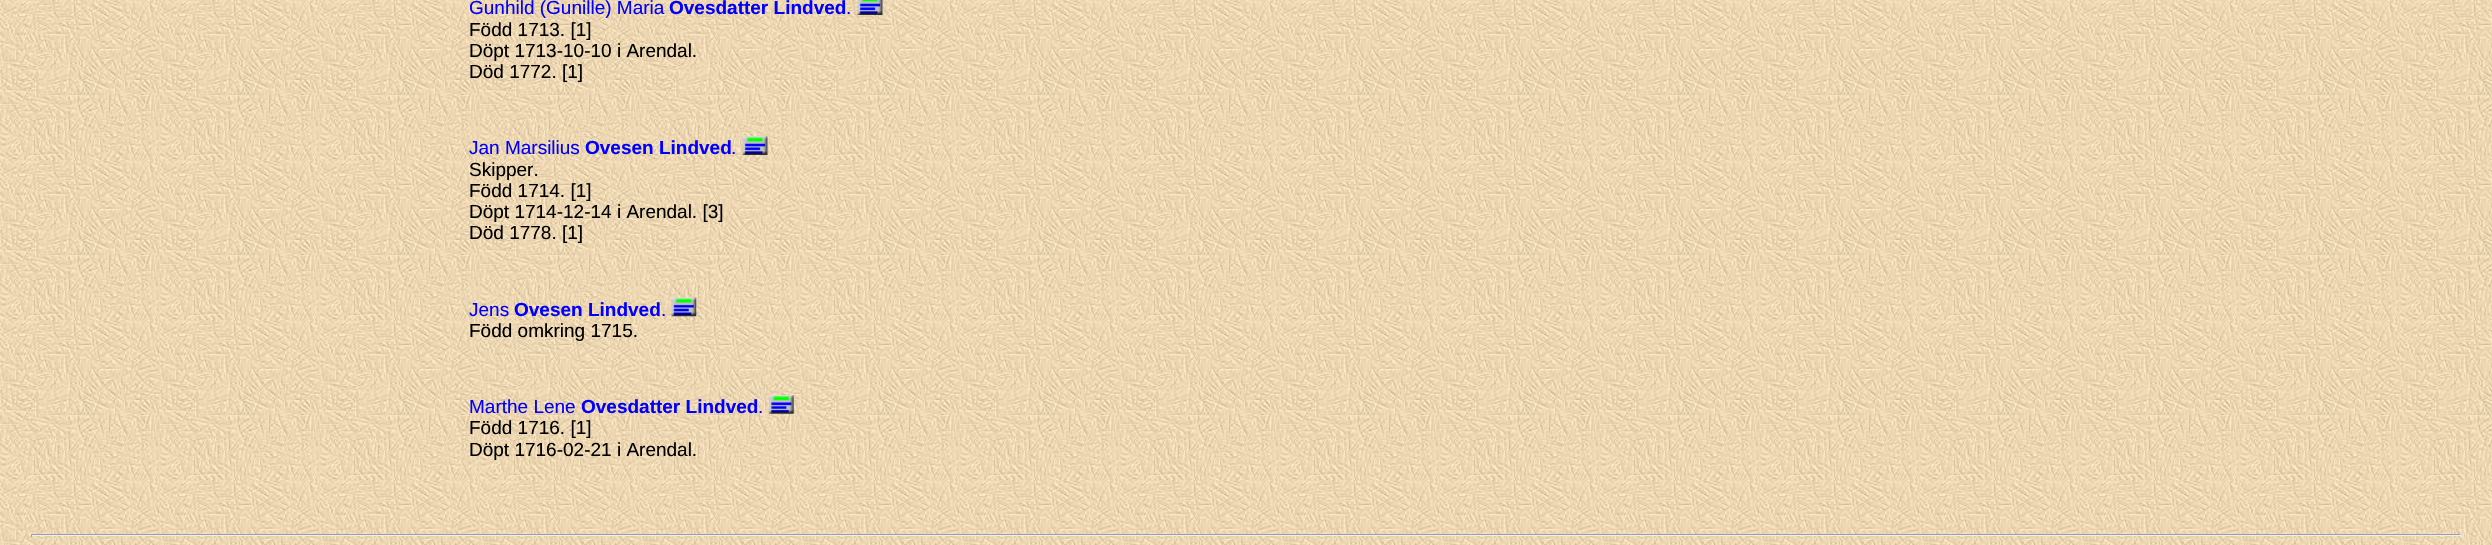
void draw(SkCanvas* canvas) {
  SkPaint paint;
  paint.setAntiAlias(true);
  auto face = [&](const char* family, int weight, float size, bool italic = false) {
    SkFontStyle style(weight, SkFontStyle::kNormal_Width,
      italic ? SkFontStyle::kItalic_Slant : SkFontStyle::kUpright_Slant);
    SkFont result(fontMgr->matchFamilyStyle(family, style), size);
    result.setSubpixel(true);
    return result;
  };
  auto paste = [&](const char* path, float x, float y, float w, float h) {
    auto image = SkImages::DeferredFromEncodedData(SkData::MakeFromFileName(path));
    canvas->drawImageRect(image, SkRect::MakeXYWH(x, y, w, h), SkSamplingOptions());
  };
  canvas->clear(0xffffffff);
  paste("img/1.png", 0, 0, 2492, 545);
  paste("img/2.png", 857, 0, 26, 15);
  paste("img/3.png", 742, 136, 26, 19);
  paste("img/4.png", 671, 297, 26, 20);
  paste("img/5.png", 768, 395, 26, 19);
  {
    const struct { float x, y, w, h; SkColor color; } items[] = {
      {31, 534, 2430, 1, 0xff9f9f9f},
      {2460, 534, 1, 3, 0xffeeeeee},
      {31, 535, 2430, 1, 0xffeeeeee},
      {31, 534, 1, 3, 0xff9f9f9f},
    };
    for (auto [x, y, w, h, color] : items) {
      paint.setColor(color);
      canvas->drawRect(SkRect::MakeXYWH(x, y, w, h), paint);
    }
  }
  auto f0 = face("Liberation Sans", 400, 19);
  paint.setColor(0xff0000ff);
  canvas->drawString("Gunhild (Gunille) Maria", 469, 14, f0, paint);
  auto f1 = face("Liberation Sans", 700, 19);
  canvas->drawString("Ovesdatter Lindved", 669, 14, f1, paint);
  canvas->drawString(".", 846, 14, f0, paint);
  paint.setColor(0xff000000);
  {
    const struct { const char* s; float x, y; } items[] = {
      {"Född 1713. [1]", 469, 36},
      {"Döpt 1713-10-10 i Arendal.", 469, 57},
      {"Död 1772. [1]", 469, 78},
    };
    for (auto [s, x, y] : items) {
      canvas->drawString(s, x, y, f0, paint);
    }
  }
  paint.setColor(0xff0000ff);
  canvas->drawString("Jan Marsilius", 469, 154, f0, paint);
  canvas->drawString("Ovesen Lindved", 585, 154, f1, paint);
  canvas->drawString(".", 731, 154, f0, paint);
  paint.setColor(0xff000000);
  {
    const struct { const char* s; float x, y; } items[] = {
      {"Skipper.", 469, 176},
      {"Född 1714. [1]", 469, 197},
      {"Döpt 1714-12-14 i Arendal. [3]", 469, 218},
      {"Död 1778. [1]", 469, 239},
    };
    for (auto [s, x, y] : items) {
      canvas->drawString(s, x, y, f0, paint);
    }
  }
  paint.setColor(0xff0000ff);
  canvas->drawString("Jens", 469, 316, f0, paint);
  canvas->drawString("Ovesen Lindved", 514, 316, f1, paint);
  canvas->drawString(".", 661, 316, f0, paint);
  paint.setColor(0xff000000);
  canvas->drawString("Född omkring 1715.", 469, 337, f0, paint);
  paint.setColor(0xff0000ff);
  canvas->drawString("Marthe Lene", 469, 413, f0, paint);
  canvas->drawString("Ovesdatter Lindved", 581, 413, f1, paint);
  canvas->drawString(".", 758, 413, f0, paint);
  paint.setColor(0xff000000);
  canvas->drawString("Född 1716. [1]", 469, 434, f0, paint);
  canvas->drawString("Döpt 1716-02-21 i Arendal.", 469, 456, f0, paint);
}
